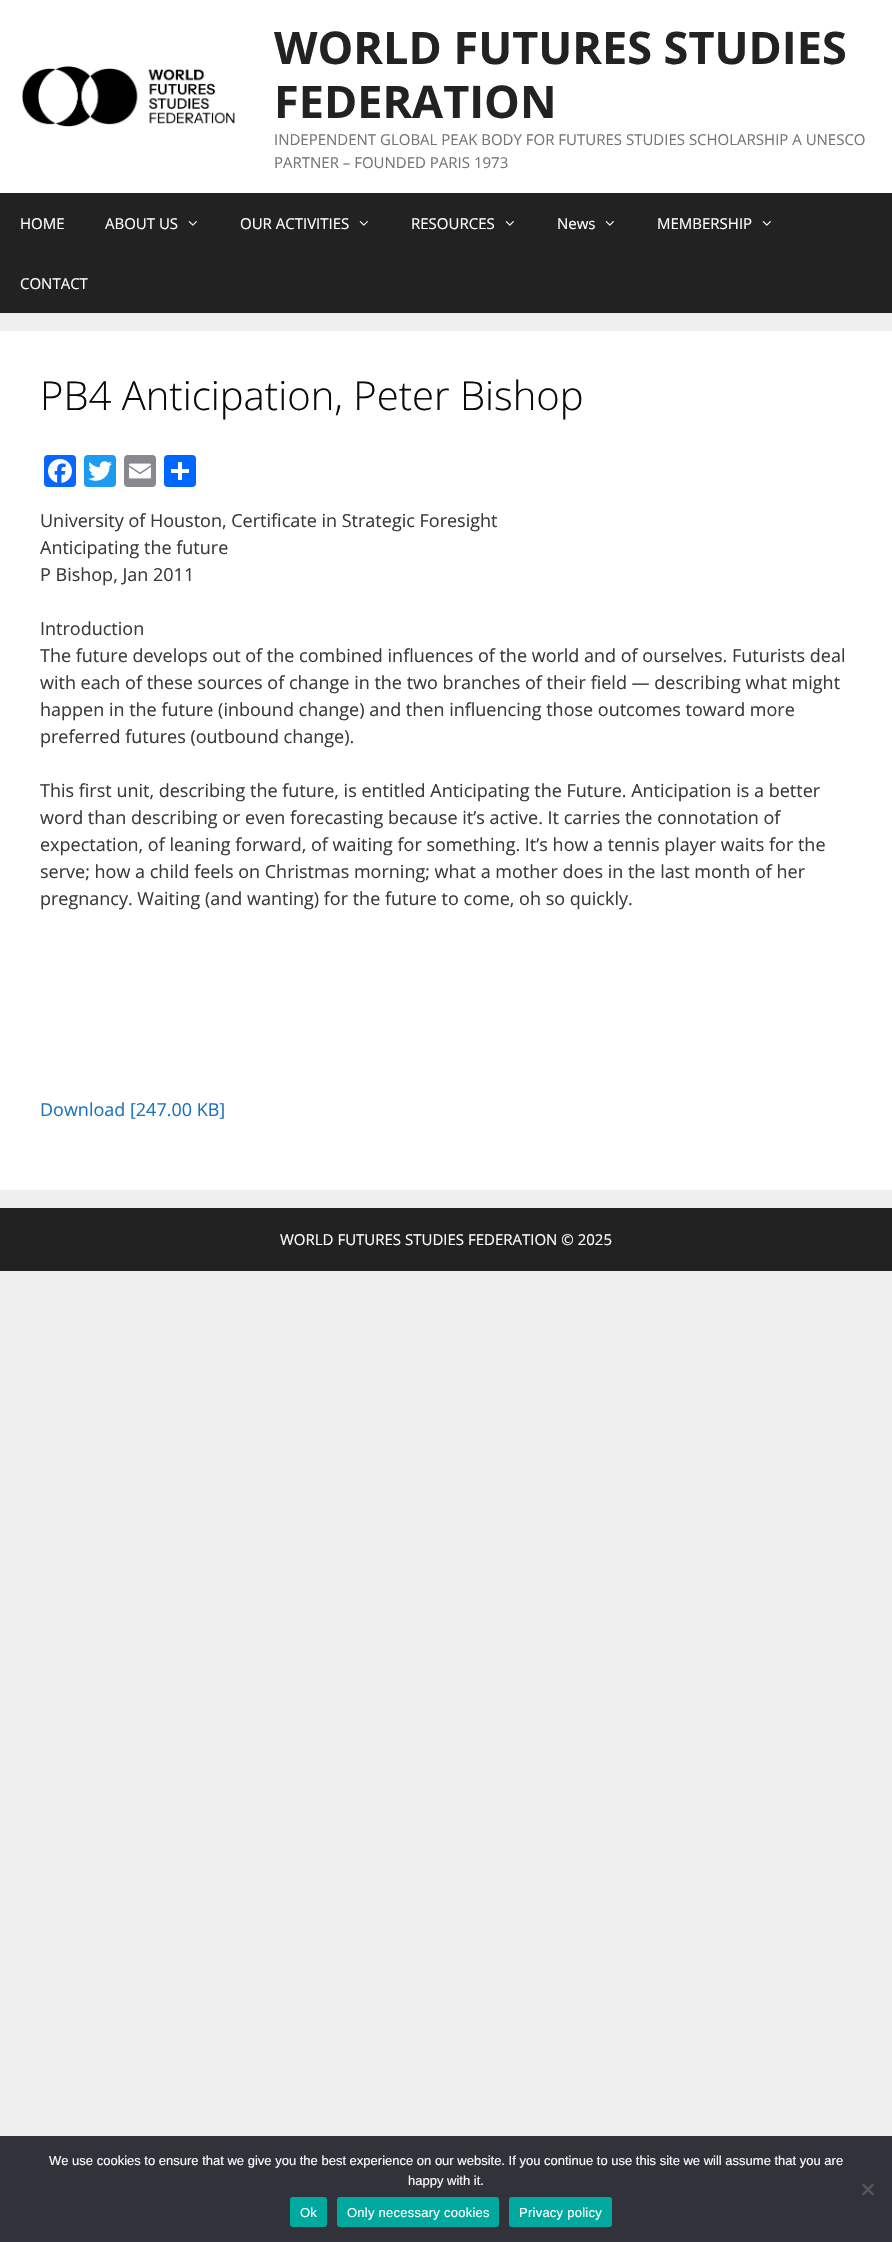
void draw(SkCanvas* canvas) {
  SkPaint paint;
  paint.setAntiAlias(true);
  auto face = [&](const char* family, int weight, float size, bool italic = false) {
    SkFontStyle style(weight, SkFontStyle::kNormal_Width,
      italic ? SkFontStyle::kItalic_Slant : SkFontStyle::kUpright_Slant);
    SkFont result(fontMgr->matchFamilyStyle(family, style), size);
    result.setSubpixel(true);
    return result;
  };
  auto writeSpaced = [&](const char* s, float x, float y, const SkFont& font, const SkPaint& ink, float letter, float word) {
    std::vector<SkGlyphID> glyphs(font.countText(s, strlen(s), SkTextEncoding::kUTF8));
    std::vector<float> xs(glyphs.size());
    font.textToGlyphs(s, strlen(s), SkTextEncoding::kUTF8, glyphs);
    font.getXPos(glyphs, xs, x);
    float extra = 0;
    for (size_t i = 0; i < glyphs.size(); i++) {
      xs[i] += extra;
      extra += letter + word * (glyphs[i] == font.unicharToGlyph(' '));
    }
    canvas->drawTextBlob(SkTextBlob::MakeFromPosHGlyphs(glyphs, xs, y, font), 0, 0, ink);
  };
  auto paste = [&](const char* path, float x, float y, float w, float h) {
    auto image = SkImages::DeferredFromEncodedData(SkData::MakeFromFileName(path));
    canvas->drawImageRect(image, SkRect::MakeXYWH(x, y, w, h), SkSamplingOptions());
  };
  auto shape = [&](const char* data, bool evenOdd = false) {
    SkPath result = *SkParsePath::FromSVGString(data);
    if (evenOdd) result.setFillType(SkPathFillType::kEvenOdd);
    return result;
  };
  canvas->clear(0xffefefef);
  paint.setColor(0xffffffff);
  canvas->drawRect(SkRect::MakeXYWH(0, 0, 892, 193), paint);
  paste("img/1.png", 21, 66, 214, 61);
  paint.setColor(0xff222222);
  canvas->drawRect(SkRect::MakeXYWH(0, 193, 892, 120), paint);
  paste("img/2.png", 188, 221, 9, 5);
  paste("img/2.png", 359, 221, 9, 5);
  paste("img/2.png", 505, 221, 9, 5);
  paste("img/2.png", 605, 221, 9, 5);
  paste("img/2.png", 762, 221, 9, 5);
  paint.setColor(0xffffffff);
  canvas->drawRect(SkRect::MakeXYWH(0, 331, 892, 859), paint);
  paint.setColor(0xff0866ff);
  canvas->drawRoundRect(SkRect::MakeXYWH(44, 455, 32, 32), 4, 4, paint);
  paste("img/3.png", 48, 459, 24, 24);
  paint.setColor(0xff1d9bf0);
  canvas->drawRoundRect(SkRect::MakeXYWH(84, 455, 32, 32), 4, 4, paint);
  paste("img/4.png", 88, 461, 24, 20);
  paint.setColor(0xff888990);
  canvas->drawRoundRect(SkRect::MakeXYWH(124, 455, 32, 32), 4, 4, paint);
  paste("img/5.png", 129, 463, 22, 16);
  paint.setColor(0xff0166ff);
  canvas->drawRoundRect(SkRect::MakeXYWH(164, 455, 32, 32), 4, 4, paint);
  {
    const struct { float x, y, w, h; SkColor color; } items[] = {
      {178, 462, 4, 18, 0xffffffff},
      {171, 469, 18, 4, 0xffffffff},
      {0, 1208, 892, 63, 0xff222222},
      {0, 2136, 892, 106, 0xff32323a},
    };
    for (auto [x, y, w, h, color] : items) {
      paint.setColor(color);
      canvas->drawRect(SkRect::MakeXYWH(x, y, w, h), paint);
    }
  }
  paint.setColor(0xff59595d);
  canvas->drawPath(shape("M872.5 2183.5L874 2185L863.5 2195.5L862 2194Z"), paint);
  canvas->drawPath(shape("M862 2185L863.5 2183.5L874 2194L872.5 2195.5Z"), paint);
  paint.setColor(0xff00a99d);
  canvas->drawRoundRect(SkRect::MakeXYWH(290, 2197, 37, 30), 3, 3, paint);
  canvas->drawRoundRect(SkRect::MakeXYWH(337, 2197, 162, 30), 3, 3, paint);
  canvas->drawRoundRect(SkRect::MakeXYWH(509, 2197, 103, 30), 3, 3, paint);
  auto f0 = face("Open Sans", 700, 45);
  paint.setColor(0xff222222);
  canvas->drawString("WORLD FUTURES STUDIES", 274, 64, f0, paint);
  canvas->drawString("FEDERATION", 274, 118, f0, paint);
  auto f1 = face("Open Sans", 400, 15);
  paint.setColor(0xff757575);
  canvas->drawString("INDEPENDENT GLOBAL PEAK BODY FOR FUTURES STUDIES SCHOLARSHIP A UNESCO", 274, 145, f1, paint);
  canvas->drawString("PARTNER – FOUNDED PARIS 1973", 274, 168, f1, paint);
  paint.setColor(0xffffffff);
  {
    const struct { const char* s; float x, y; } items[] = {
      {"HOME", 20, 229},
      {"ABOUT US", 105, 229},
      {"OUR ACTIVITIES", 240, 229},
      {"RESOURCES", 411, 229},
      {"News", 557, 229},
      {"MEMBERSHIP", 657, 229},
      {"CONTACT", 20, 289},
    };
    for (auto [s, x, y] : items) {
      canvas->drawString(s, x, y, f1, paint);
    }
  }
  auto f2 = face("Open Sans", 300, 40);
  paint.setColor(0xff0a0a0a);
  canvas->drawString("PB4 Anticipation, Peter Bishop", 40, 410, f2, paint);
  auto f3 = face("Open Sans", 400, 18);
  paint.setColor(0xff3a3a3a);
  {
    const struct { const char* s; float x, y; } items[] = {
      {"University of Houston, Certificate in Strategic Foresight", 40, 527},
      {"Anticipating the future", 40, 554},
      {"P Bishop, Jan 2011", 40, 581},
      {"Introduction", 40, 635},
      {"The future develops out of the combined influences of the world and of ourselves. Futurists deal", 40, 662},
      {"with each of these sources of change in the two branches of their field — describing what might", 40, 689},
      {"happen in the future (inbound change) and then influencing those outcomes toward more", 40, 716},
      {"preferred futures (outbound change).", 40, 743},
      {"This first unit, describing the future, is entitled Anticipating the Future. Anticipation is a better", 40, 797},
      {"word than describing or even forecasting because it’s active. It carries the connotation of", 40, 824},
      {"expectation, of leaning forward, of waiting for something. It’s how a tennis player waits for the", 40, 851},
      {"serve; how a child feels on Christmas morning; what a mother does in the last month of her", 40, 878},
      {"pregnancy. Waiting (and wanting) for the future to come, oh so quickly.", 40, 905},
    };
    for (auto [s, x, y] : items) {
      canvas->drawString(s, x, y, f3, paint);
    }
  }
  paint.setColor(0xff1e73be);
  canvas->drawString("Download [247.00 KB]", 40, 1116, f3, paint);
  paint.setColor(0xffffffff);
  canvas->drawString("WORLD FUTURES STUDIES FEDERATION © 2025", 280, 1245, f1, paint);
  auto f4 = face("Liberation Sans", 400, 13);
  canvas->drawString("We use cookies to ensure that we give you the best experience on our website. If you continue to use this site we will assume that you are", 49, 2165, f4, paint);
  canvas->drawString("happy with it.", 408, 2185, f4, paint);
  {
    const struct { const char* s; float x, y; } items[] = {
      {"Ok", 300, 2217},
      {"Only necessary cookies", 347, 2217},
      {"Privacy policy", 519, 2217},
    };
    for (auto [s, x, y] : items) {
      writeSpaced(s, x, y, f4, paint, 0.25f, 0);
    }
  }
}
